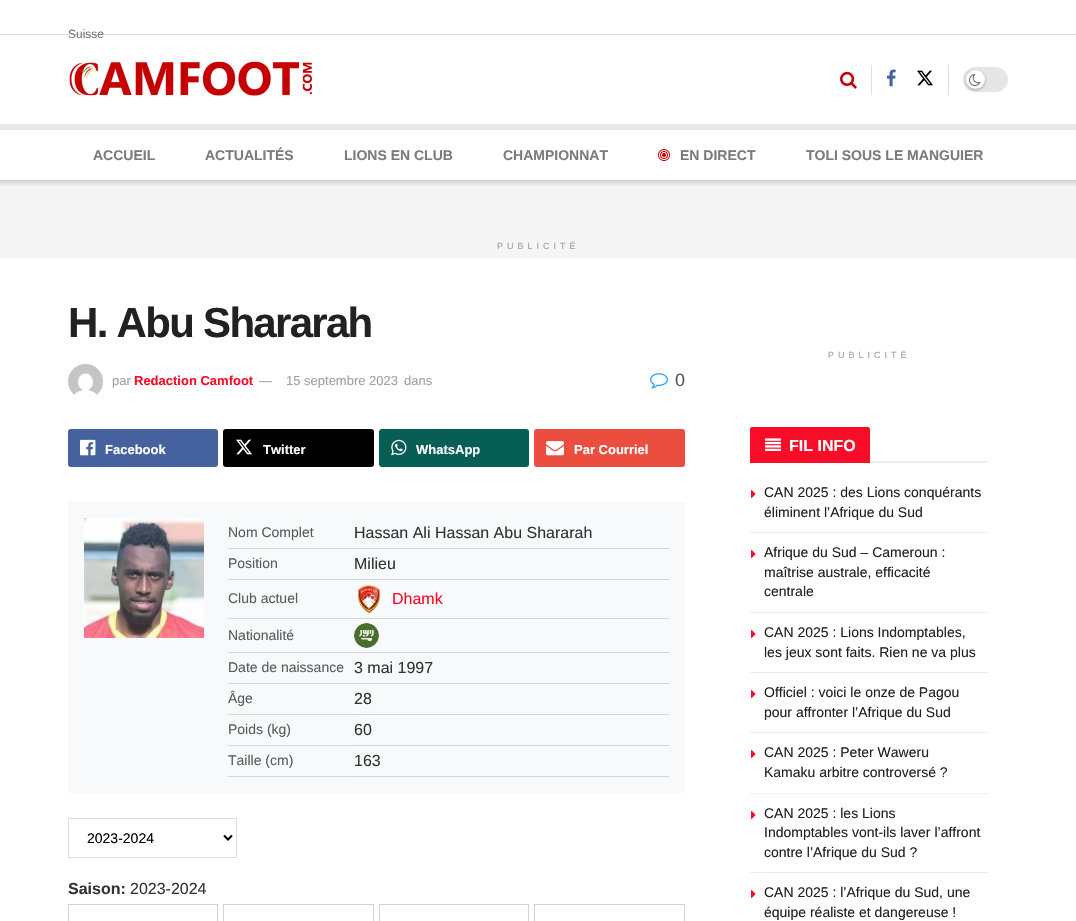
void draw(SkCanvas* canvas) {
  SkPaint paint;
  paint.setAntiAlias(true);
  auto face = [&](const char* family, int weight, float size, bool italic = false) {
    SkFontStyle style(weight, SkFontStyle::kNormal_Width,
      italic ? SkFontStyle::kItalic_Slant : SkFontStyle::kUpright_Slant);
    SkFont result(fontMgr->matchFamilyStyle(family, style), size);
    result.setSubpixel(true);
    return result;
  };
  auto writeSpaced = [&](const char* s, float x, float y, const SkFont& font, const SkPaint& ink, float letter, float word) {
    std::vector<SkGlyphID> glyphs(font.countText(s, strlen(s), SkTextEncoding::kUTF8));
    std::vector<float> xs(glyphs.size());
    font.textToGlyphs(s, strlen(s), SkTextEncoding::kUTF8, glyphs);
    font.getXPos(glyphs, xs, x);
    float extra = 0;
    for (size_t i = 0; i < glyphs.size(); i++) {
      xs[i] += extra;
      extra += letter + word * (glyphs[i] == font.unicharToGlyph(' '));
    }
    canvas->drawTextBlob(SkTextBlob::MakeFromPosHGlyphs(glyphs, xs, y, font), 0, 0, ink);
  };
  auto paste = [&](const char* path, float x, float y, float w, float h) {
    auto image = SkImages::DeferredFromEncodedData(SkData::MakeFromFileName(path));
    canvas->drawImageRect(image, SkRect::MakeXYWH(x, y, w, h), SkSamplingOptions());
  };
  auto shape = [&](const char* data, bool evenOdd = false) {
    SkPath result = *SkParsePath::FromSVGString(data);
    if (evenOdd) result.setFillType(SkPathFillType::kEvenOdd);
    return result;
  };
  canvas->clear(0xffffffff);
  paint.setColor(0xffe0e0e0);
  canvas->drawRect(SkRect::MakeXYWH(0, 34, 1076, 1), paint);
  paste("img/1.png", 69, 61, 243, 35);
  paste("img/2.png", 840, 71, 17, 18);
  canvas->drawRect(SkRect::MakeXYWH(871, 65, 1, 30), paint);
  paste("img/3.png", 886, 69, 10, 18);
  paste("img/4.png", 917, 70, 16, 16);
  canvas->drawRect(SkRect::MakeXYWH(948, 65, 1, 30), paint);
  paint.setColor(0xffe6e6e6);
  canvas->drawRoundRect(SkRect::MakeXYWH(963, 67, 45, 25), 12.5f, 12.5f, paint);
  paint.setColor(0x4d000000);
  paint.setMaskFilter(SkMaskFilter::MakeBlur(kNormal_SkBlurStyle, 1.5f));
  canvas->drawRoundRect(SkRect::MakeXYWH(966, 71, 19, 19), 9.5f, 9.5f, paint);
  paint.setMaskFilter(nullptr);
  paint.setColor(0xffffffff);
  canvas->drawCircle(975.5f, 79.5f, 9.5f, paint);
  paste("img/5.png", 969, 74, 12, 12);
  paint.setColor(0xffe8e8e8);
  canvas->drawRect(SkRect::MakeXYWH(0, 124, 1076, 6), paint);
  paste("img/6.png", 658, 149, 12, 12);
  {
    const SkColor colors[] = {0xffd0d0d0, 0xfff5f5f5};
    const float stops[] = {0, 1};
    const SkPoint ends[] = {{538, 180}, {538, 187}};
    paint.setShader(SkGradientShader::MakeLinear(ends, colors, stops, 2, SkTileMode::kClamp));
    paint.setAlpha(255);
  }
  canvas->drawRect(SkRect::MakeXYWH(0, 180, 1076, 7), paint);
  paint.setShader(nullptr);
  paint.setColor(0xfff5f5f5);
  canvas->drawRect(SkRect::MakeXYWH(0, 187, 1076, 72), paint);
  paste("img/7.png", 68, 364, 35, 31);
  paste("img/8.png", 650, 373, 18, 16);
  paint.setColor(0xff45629f);
  canvas->drawRoundRect(SkRect::MakeXYWH(68, 429, 150, 38), 3, 3, paint);
  paste("img/9.png", 80, 439, 16, 17);
  paint.setColor(0xff000000);
  canvas->drawRoundRect(SkRect::MakeXYWH(223, 429, 151, 38), 3, 3, paint);
  paste("img/10.png", 236, 439, 16, 16);
  paint.setColor(0xff075e54);
  canvas->drawRoundRect(SkRect::MakeXYWH(379, 429, 150, 38), 3, 3, paint);
  paste("img/11.png", 391, 439, 16, 17);
  paint.setColor(0xffeb4d3f);
  canvas->drawRoundRect(SkRect::MakeXYWH(534, 429, 151, 38), 3, 3, paint);
  paste("img/12.png", 546, 441, 18, 15);
  paint.setColor(0xfff8f9fa);
  canvas->drawRect(SkRect::MakeXYWH(68, 502, 617, 291), paint);
  paste("img/13.png", 84, 518, 120, 120);
  {
    const struct { float x, y, w, h; SkColor color; } items[] = {
      {228, 548, 126, 1, 0xffd6dbe0},
      {354, 548, 315, 1, 0xffced4da},
      {228, 579, 126, 1, 0xffd6dbe0},
      {354, 579, 315, 1, 0xffced4da},
      {228, 618, 126, 1, 0xffd6dbe0},
      {354, 618, 315, 1, 0xffced4da},
    };
    for (auto [x, y, w, h, color] : items) {
      paint.setColor(color);
      canvas->drawRect(SkRect::MakeXYWH(x, y, w, h), paint);
    }
  }
  paste("img/14.png", 358, 585, 22, 28);
  paint.setColor(0xffd6dbe0);
  canvas->drawRect(SkRect::MakeXYWH(228, 652, 126, 1), paint);
  paint.setColor(0xffced4da);
  canvas->drawRect(SkRect::MakeXYWH(354, 652, 315, 1), paint);
  paste("img/15.png", 354, 623, 25, 25);
  {
    const struct { float x, y, w, h; SkColor color; } items[] = {
      {228, 683, 126, 1, 0xffd6dbe0},
      {354, 683, 315, 1, 0xffced4da},
      {228, 714, 126, 1, 0xffd6dbe0},
      {354, 714, 315, 1, 0xffced4da},
      {228, 745, 126, 1, 0xffd6dbe0},
      {354, 745, 315, 1, 0xffced4da},
      {228, 776, 126, 1, 0xffd6dbe0},
      {354, 776, 315, 1, 0xffced4da},
    };
    for (auto [x, y, w, h, color] : items) {
      paint.setColor(color);
      canvas->drawRect(SkRect::MakeXYWH(x, y, w, h), paint);
    }
  }
  paint.setStroke(true);
  paint.setStrokeWidth(1);
  paint.setColor(0xffe0e0e0);
  canvas->drawRect(SkRect::MakeXYWH(68.5f, 818.5f, 168, 39), paint);
  paint.setStrokeWidth(2);
  paint.setColor(0xff000000);
  canvas->drawPath(shape("M224 835.5L228 839.5L232 835.5"), paint);
  paint.setStrokeWidth(1);
  paint.setColor(0xffced4da);
  canvas->drawRect(SkRect::MakeXYWH(68.5f, 904.5f, 149, 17), paint);
  canvas->drawRect(SkRect::MakeXYWH(223.5f, 904.5f, 150, 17), paint);
  canvas->drawRect(SkRect::MakeXYWH(379.5f, 904.5f, 149, 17), paint);
  canvas->drawRect(SkRect::MakeXYWH(534.5f, 904.5f, 150, 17), paint);
  paint.setStroke(false);
  paint.setColor(0xffeeeeee);
  canvas->drawRect(SkRect::MakeXYWH(870, 461, 118, 2), paint);
  paint.setColor(0xfff70d28);
  canvas->drawPath(shape("M752 427H868C869 427 870 428 870 429V463H750V429C750 428 751 427 752 427Z"), paint);
  paste("img/16.png", 765, 438, 16, 13);
  paint.setColor(0xffeeeeee);
  canvas->drawRect(SkRect::MakeXYWH(750, 532, 238, 1), paint);
  paste("img/17.png", 751, 490, 5, 8);
  canvas->drawRect(SkRect::MakeXYWH(750, 612, 238, 1), paint);
  paste("img/17.png", 751, 550, 5, 8);
  canvas->drawRect(SkRect::MakeXYWH(750, 672, 238, 1), paint);
  paste("img/17.png", 751, 630, 5, 8);
  canvas->drawRect(SkRect::MakeXYWH(750, 732, 238, 1), paint);
  paste("img/17.png", 751, 690, 5, 8);
  canvas->drawRect(SkRect::MakeXYWH(750, 793, 238, 1), paint);
  paste("img/17.png", 751, 750, 5, 8);
  canvas->drawRect(SkRect::MakeXYWH(750, 872, 238, 1), paint);
  paste("img/17.png", 751, 811, 5, 8);
  paste("img/17.png", 751, 890, 5, 8);
  auto f0 = face("Liberation Sans", 400, 12);
  paint.setColor(0xff757575);
  canvas->drawString("Suisse", 68, 38, f0, paint);
  auto f1 = face("Liberation Sans", 700, 14);
  paint.setColor(0xff7b7b7a);
  {
    const struct { const char* s; float x, y; } items[] = {
      {"ACCUEIL", 93, 160},
      {"ACTUALITÉS", 205, 160},
      {"LIONS EN CLUB", 344, 160},
      {"CHAMPIONNAT", 503, 160},
      {"EN DIRECT", 680, 160},
      {"TOLI SOUS LE MANGUIER", 806, 160},
    };
    for (auto [s, x, y] : items) {
      canvas->drawString(s, x, y, f1, paint);
    }
  }
  auto f2 = face("Liberation Sans", 400, 9);
  paint.setColor(0xffa0a0a0);
  writeSpaced("PUBLICITÉ", 497, 249, f2, paint, 4, 0);
  auto f3 = face("Liberation Sans", 700, 42);
  paint.setColor(0xff212121);
  writeSpaced("H. Abu Shararah", 68, 337, f3, paint, -1.7f, 0);
  auto f4 = face("Liberation Sans", 400, 13);
  paint.setColor(0xffa0a0a0);
  canvas->drawString("par", 112, 385, f4, paint);
  auto f5 = face("Liberation Sans", 700, 13);
  paint.setColor(0xfff70d28);
  canvas->drawString("Redaction Camfoot", 134, 385, f5, paint);
  paint.setColor(0xffa0a0a0);
  {
    const struct { const char* s; float x, y; } items[] = {
      {"—", 259, 385},
      {"15 septembre 2023", 286, 385},
      {"dans", 404, 385},
    };
    for (auto [s, x, y] : items) {
      canvas->drawString(s, x, y, f4, paint);
    }
  }
  auto f6 = face("Liberation Sans", 400, 18);
  paint.setColor(0xff53585c);
  canvas->drawString("0", 675, 386, f6, paint);
  paint.setColor(0xffffffff);
  {
    const struct { const char* s; float x, y; } items[] = {
      {"Facebook", 105, 454},
      {"Twitter", 263, 454},
      {"WhatsApp", 416, 454},
      {"Par Courriel", 574, 454},
    };
    for (auto [s, x, y] : items) {
      canvas->drawString(s, x, y, f5, paint);
    }
  }
  auto f7 = face("Liberation Sans", 400, 14);
  paint.setColor(0xff5a5b5b);
  canvas->drawString("Nom Complet", 228, 537, f7, paint);
  auto f8 = face("Liberation Sans", 400, 16);
  paint.setColor(0xff333333);
  canvas->drawString("Hassan Ali Hassan Abu Shararah", 354, 538, f8, paint);
  paint.setColor(0xff5a5b5b);
  canvas->drawString("Position", 228, 568, f7, paint);
  paint.setColor(0xff333333);
  canvas->drawString("Milieu", 354, 569, f8, paint);
  paint.setColor(0xff5a5b5b);
  canvas->drawString("Club actuel", 228, 603, f7, paint);
  paint.setColor(0xfff70d28);
  canvas->drawString("Dhamk", 392, 604, f8, paint);
  paint.setColor(0xff5a5b5b);
  canvas->drawString("Nationalité", 228, 640, f7, paint);
  canvas->drawString("Date de naissance", 228, 672, f7, paint);
  paint.setColor(0xff333333);
  canvas->drawString("3 mai 1997", 354, 673, f8, paint);
  paint.setColor(0xff5a5b5b);
  canvas->drawString("Âge", 228, 703, f7, paint);
  paint.setColor(0xff333333);
  canvas->drawString("28", 354, 704, f8, paint);
  paint.setColor(0xff5a5b5b);
  canvas->drawString("Poids (kg)", 228, 734, f7, paint);
  paint.setColor(0xff333333);
  canvas->drawString("60", 354, 735, f8, paint);
  paint.setColor(0xff5a5b5b);
  canvas->drawString("Taille (cm)", 228, 765, f7, paint);
  paint.setColor(0xff333333);
  canvas->drawString("163", 354, 766, f8, paint);
  paint.setColor(0xff000000);
  canvas->drawString("2023-2024", 87, 843, f7, paint);
  auto f9 = face("Liberation Sans", 700, 16);
  paint.setColor(0xff333333);
  canvas->drawString("Saison:", 68, 894, f9, paint);
  canvas->drawString("2023-2024", 130, 894, f8, paint);
  paint.setColor(0xffa0a0a0);
  writeSpaced("PUBLICITÉ", 828, 358, f2, paint, 4, 0);
  paint.setColor(0xffffffff);
  canvas->drawString("FIL INFO", 789, 451, f9, paint);
  paint.setColor(0xff212121);
  {
    const struct { const char* s; float x, y; } items[] = {
      {"CAN 2025 : des Lions conquérants", 764, 497},
      {"éliminent l’Afrique du Sud", 764, 517},
      {"Afrique du Sud – Cameroun :", 764, 557},
      {"maîtrise australe, efficacité", 764, 577},
      {"centrale", 764, 596},
      {"CAN 2025 : Lions Indomptables,", 764, 637},
      {"les jeux sont faits. Rien ne va plus", 764, 657},
      {"Officiel : voici le onze de Pagou", 764, 697},
      {"pour affronter l’Afrique du Sud", 764, 717},
      {"CAN 2025 : Peter Waweru", 764, 757},
      {"Kamaku arbitre controversé ?", 764, 777},
      {"CAN 2025 : les Lions", 764, 818},
      {"Indomptables vont-ils laver l’affront", 764, 837},
      {"contre l’Afrique du Sud ?", 764, 857},
      {"CAN 2025 : l’Afrique du Sud, une", 764, 897},
      {"équipe réaliste et dangereuse !", 764, 917},
    };
    for (auto [s, x, y] : items) {
      canvas->drawString(s, x, y, f7, paint);
    }
  }
}
